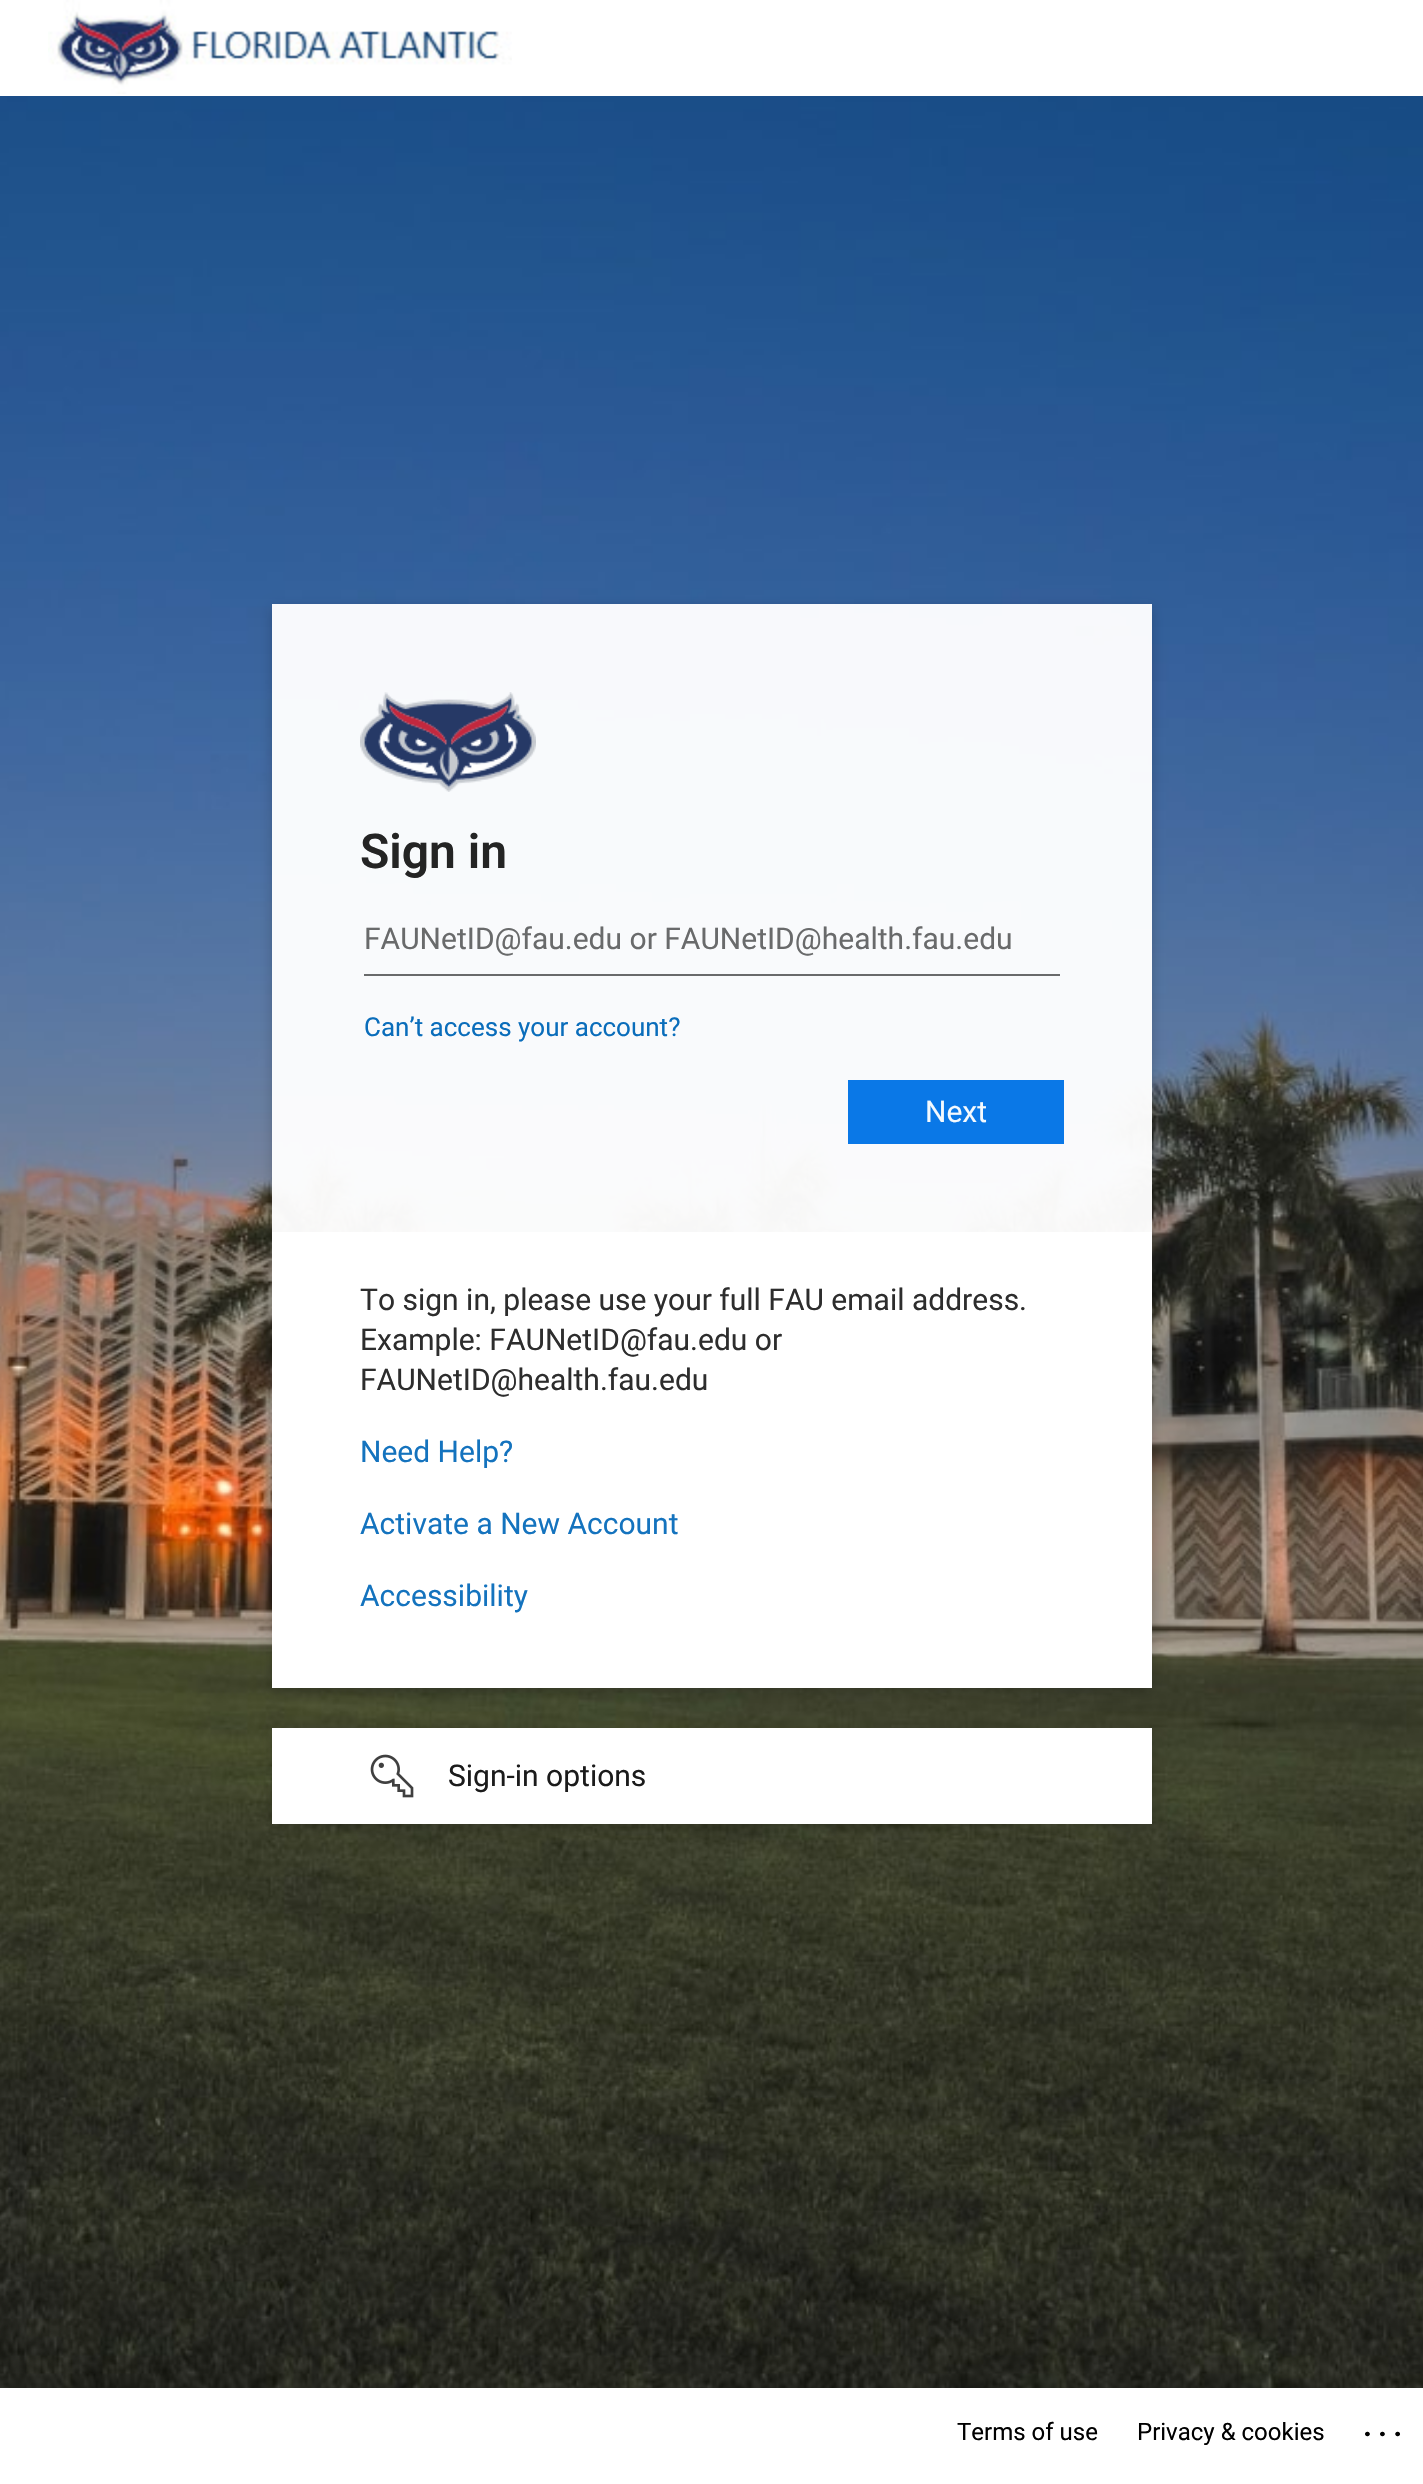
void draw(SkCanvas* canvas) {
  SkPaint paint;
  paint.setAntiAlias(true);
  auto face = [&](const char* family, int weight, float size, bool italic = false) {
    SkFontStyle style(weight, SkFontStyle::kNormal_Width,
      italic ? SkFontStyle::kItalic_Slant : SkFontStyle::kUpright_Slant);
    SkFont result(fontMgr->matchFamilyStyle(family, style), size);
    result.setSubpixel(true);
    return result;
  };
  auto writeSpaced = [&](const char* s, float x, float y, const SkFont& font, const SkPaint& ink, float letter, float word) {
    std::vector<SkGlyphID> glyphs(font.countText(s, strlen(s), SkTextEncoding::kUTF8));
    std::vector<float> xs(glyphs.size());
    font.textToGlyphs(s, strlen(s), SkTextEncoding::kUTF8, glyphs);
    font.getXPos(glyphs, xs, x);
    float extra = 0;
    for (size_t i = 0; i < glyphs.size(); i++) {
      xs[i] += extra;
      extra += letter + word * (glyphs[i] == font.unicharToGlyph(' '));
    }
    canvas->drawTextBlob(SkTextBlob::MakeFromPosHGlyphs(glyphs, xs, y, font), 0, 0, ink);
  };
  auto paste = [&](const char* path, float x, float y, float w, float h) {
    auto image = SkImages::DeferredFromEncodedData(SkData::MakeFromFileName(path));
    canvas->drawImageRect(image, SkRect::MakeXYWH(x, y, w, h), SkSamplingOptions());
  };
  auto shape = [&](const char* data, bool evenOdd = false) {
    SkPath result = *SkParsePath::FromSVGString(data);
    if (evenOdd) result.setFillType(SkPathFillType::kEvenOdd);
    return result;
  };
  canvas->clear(0xffffffff);
  paste("img/1.png", 0, 96, 1423, 2292);
  paste("img/2.png", 48, 0, 464, 94);
  canvas->save();
  canvas->clipPath(shape("M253 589H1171V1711H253ZM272 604H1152V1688H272Z", true), true);
  paint.setColor(0x30000000);
  paint.setMaskFilter(SkMaskFilter::MakeBlur(kNormal_SkBlurStyle, 6));
  canvas->drawRect(SkRect::MakeXYWH(272, 608, 880, 1084), paint);
  paint.setMaskFilter(nullptr);
  canvas->restore();
  paint.setColor(0xf5ffffff);
  canvas->drawRect(SkRect::MakeXYWH(272, 604, 880, 1084), paint);
  paste("img/3.png", 360, 692, 176, 100);
  {
    const struct { float x, y, w, h; SkColor color; } items[] = {
      {364, 974, 696, 2, 0xff696a6b},
      {848, 1080, 216, 64, 0xff0a78e7},
      {272, 1232, 880, 456, 0xebffffff},
    };
    for (auto [x, y, w, h, color] : items) {
      paint.setColor(color);
      canvas->drawRect(SkRect::MakeXYWH(x, y, w, h), paint);
    }
  }
  paint.setColor(0x33000000);
  paint.setMaskFilter(SkMaskFilter::MakeBlur(kNormal_SkBlurStyle, 6));
  canvas->drawRect(SkRect::MakeXYWH(272, 1732, 880, 96), paint);
  paint.setMaskFilter(nullptr);
  paint.setColor(0xffffffff);
  canvas->drawRect(SkRect::MakeXYWH(272, 1728, 880, 96), paint);
  paste("img/4.png", 370, 1754, 44, 44);
  auto f0 = face("Roboto", 600, 48);
  paint.setColor(0xff242424);
  canvas->drawString("Sign in", 360, 868, f0, paint);
  auto f1 = face("Roboto", 400, 30);
  paint.setColor(0xff696a6b);
  canvas->drawString("FAUNetID@fau.edu or FAUNetID@health.fau.edu", 364, 949, f1, paint);
  auto f2 = face("Roboto", 400, 26);
  paint.setColor(0xff0a6dbb);
  canvas->drawString("Can’t access your account?", 364, 1036, f2, paint);
  paint.setColor(0xfff5fafe);
  canvas->drawString("Next", 925, 1122, f1, paint);
  paint.setColor(0xff2d2d2d);
  {
    const struct { const char* s; float x, y; } items[] = {
      {"To sign in, please use your full FAU email address.", 360, 1310},
      {"Example: FAUNetID@fau.edu or", 360, 1350},
      {"FAUNetID@health.fau.edu", 360, 1390},
    };
    for (auto [s, x, y] : items) {
      canvas->drawString(s, x, y, f1, paint);
    }
  }
  paint.setColor(0xff1473be);
  {
    const struct { const char* s; float x, y; } items[] = {
      {"Need Help?", 360, 1462},
      {"Activate a New Account", 360, 1534},
      {"Accessibility", 360, 1606},
    };
    for (auto [s, x, y] : items) {
      canvas->drawString(s, x, y, f1, paint);
    }
  }
  paint.setColor(0xff1b1b1b);
  canvas->drawString("Sign-in options", 448, 1786, f1, paint);
  auto f3 = face("Roboto", 400, 24);
  paint.setColor(0xff000000);
  canvas->drawString("Terms of use", 957, 2440, f3, paint);
  canvas->drawString("Privacy & cookies", 1137, 2440, f3, paint);
  auto f4 = face("Roboto", 600, 32);
  writeSpaced("...", 1363, 2436, f4, paint, 6, 0);
}
